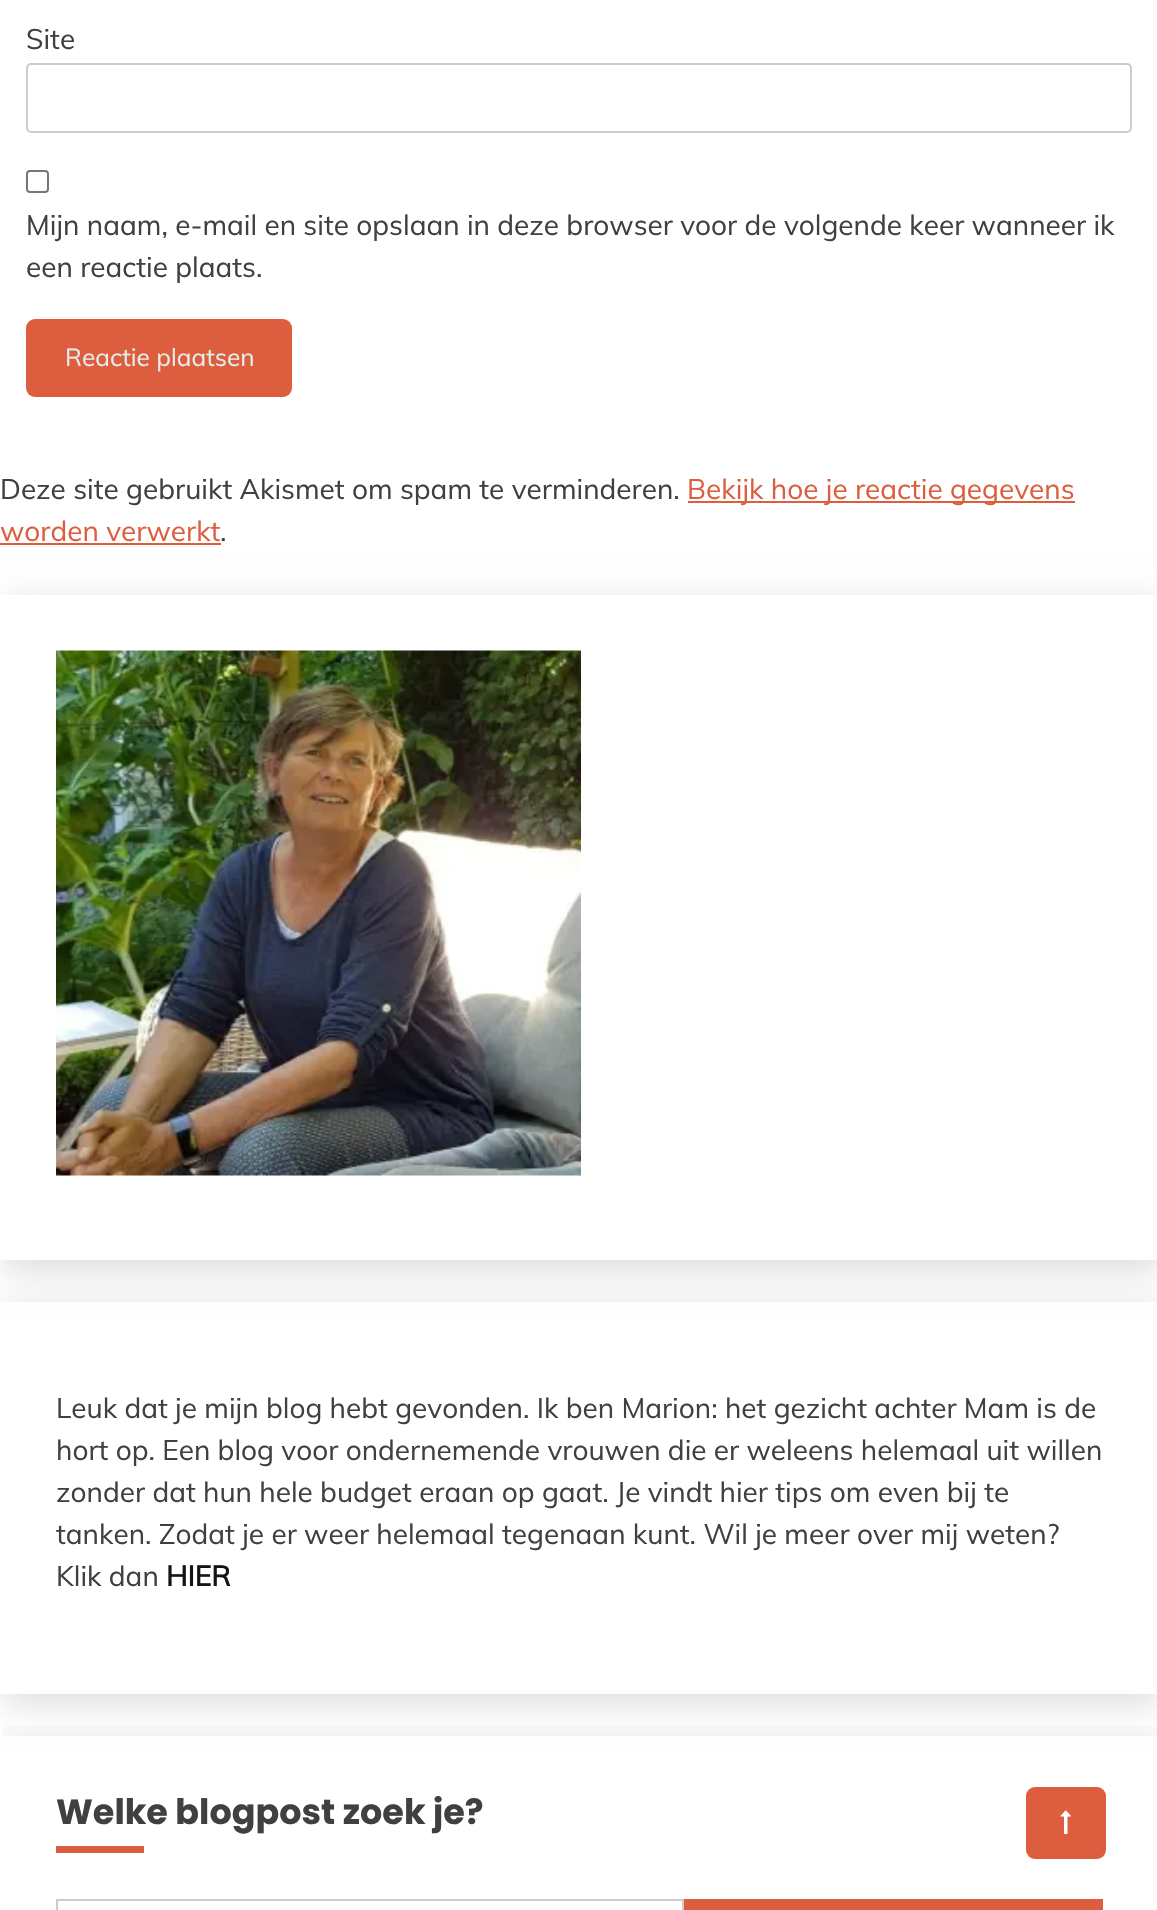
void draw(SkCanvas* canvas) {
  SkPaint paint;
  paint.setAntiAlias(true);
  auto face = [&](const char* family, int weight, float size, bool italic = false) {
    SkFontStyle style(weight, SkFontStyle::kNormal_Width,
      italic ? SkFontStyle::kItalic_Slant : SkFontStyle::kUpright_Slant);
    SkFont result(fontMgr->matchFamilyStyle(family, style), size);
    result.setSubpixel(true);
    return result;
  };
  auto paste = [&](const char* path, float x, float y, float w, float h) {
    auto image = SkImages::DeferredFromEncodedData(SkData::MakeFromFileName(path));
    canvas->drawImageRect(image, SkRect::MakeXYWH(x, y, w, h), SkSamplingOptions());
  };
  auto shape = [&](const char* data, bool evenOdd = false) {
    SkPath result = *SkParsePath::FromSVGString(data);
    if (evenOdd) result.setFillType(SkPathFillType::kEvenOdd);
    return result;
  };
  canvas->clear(0xffffffff);
  paint.setStroke(true);
  paint.setStrokeWidth(2);
  paint.setColor(0xffcccccc);
  canvas->drawRoundRect(SkRect::MakeXYWH(27, 64, 1104, 68), 4, 4, paint);
  paint.setColor(0xff767676);
  canvas->drawRoundRect(SkRect::MakeXYWH(27, 171, 21, 21), 3, 3, paint);
  paint.setStroke(false);
  paint.setColor(0xffdd5e3e);
  canvas->drawRoundRect(SkRect::MakeXYWH(26, 319, 266, 78), 9, 9, paint);
  canvas->drawRect(SkRect::MakeXYWH(688, 501, 387, 2), paint);
  canvas->drawRect(SkRect::MakeXYWH(0, 543, 221, 2), paint);
  canvas->save();
  canvas->clipPath(shape("M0 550H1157V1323H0ZM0 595H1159V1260H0Z", true), true);
  paint.setColor(0x24000000);
  paint.setMaskFilter(SkMaskFilter::MakeBlur(kNormal_SkBlurStyle, 17.5f));
  canvas->drawRect(SkRect::MakeXYWH(4, 604, 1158, 665), paint);
  paint.setMaskFilter(nullptr);
  canvas->restore();
  paste("img/1.png", 56, 650, 525, 526);
  canvas->save();
  canvas->clipPath(shape("M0 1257H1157V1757H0ZM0 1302H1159V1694H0Z", true), true);
  paint.setMaskFilter(SkMaskFilter::MakeBlur(kNormal_SkBlurStyle, 17.5f));
  canvas->drawRect(SkRect::MakeXYWH(4, 1311, 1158, 392), paint);
  paint.setMaskFilter(nullptr);
  canvas->restore();
  canvas->save();
  canvas->clipRect(SkRect::MakeXYWH(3, 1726, 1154, 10));
  paint.setMaskFilter(SkMaskFilter::MakeBlur(kNormal_SkBlurStyle, 17.5f));
  canvas->drawRect(SkRect::MakeXYWH(4, 1745, 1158, 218), paint);
  paint.setMaskFilter(nullptr);
  canvas->restore();
  paint.setColor(0xffdd5e3e);
  canvas->drawRect(SkRect::MakeXYWH(56, 1846, 88, 7), paint);
  paint.setStroke(true);
  paint.setColor(0xffcccccc);
  canvas->drawRect(SkRect::MakeXYWH(57, 1900, 626, 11), paint);
  paint.setStroke(false);
  paint.setColor(0xffdd5e3e);
  canvas->drawRect(SkRect::MakeXYWH(684, 1899, 419, 11), paint);
  canvas->drawRoundRect(SkRect::MakeXYWH(1026, 1787, 80, 72), 9, 9, paint);
  paste("img/2.png", 1060, 1810, 11, 24);
  auto f0 = face("Muli", 400, 28);
  paint.setColor(0xff404040);
  {
    const struct { const char* s; float x, y; } items[] = {
      {"Site", 26, 49},
      {"Mijn naam, e-mail en site opslaan in deze browser voor de volgende keer wanneer ik", 26, 235},
      {"een reactie plaats.", 26, 277},
    };
    for (auto [s, x, y] : items) {
      canvas->drawString(s, x, y, f0, paint);
    }
  }
  auto f1 = face("Muli", 400, 24.5f);
  paint.setColor(0xffe5ece9);
  canvas->drawString("Reactie plaatsen", 65, 366, f1, paint);
  paint.setColor(0xff404040);
  canvas->drawString("Deze site gebruikt Akismet om spam te verminderen.", 0, 499, f0, paint);
  paint.setColor(0xffdd5e3e);
  canvas->drawString("Bekijk hoe je reactie gegevens", 687, 499, f0, paint);
  canvas->drawString("worden verwerkt", 0, 541, f0, paint);
  paint.setColor(0xff404040);
  {
    const struct { const char* s; float x, y; } items[] = {
      {".", 220, 541},
      {"Leuk dat je mijn blog hebt gevonden. Ik ben Marion: het gezicht achter Mam is de", 56, 1418},
      {"hort op. Een blog voor ondernemende vrouwen die er weleens helemaal uit willen", 56, 1460},
      {"zonder dat hun hele budget eraan op gaat. Je vindt hier tips om even bij te", 56, 1502},
      {"tanken. Zodat je er weer helemaal tegenaan kunt. Wil je meer over mij weten?", 56, 1544},
      {"Klik dan", 56, 1586},
    };
    for (auto [s, x, y] : items) {
      canvas->drawString(s, x, y, f0, paint);
    }
  }
  auto f2 = face("Muli", 700, 28);
  paint.setColor(0xff141413);
  canvas->drawString("HIER", 166, 1586, f2, paint);
  auto f3 = face("Poppins", 700, 35);
  paint.setColor(0xff404040);
  canvas->drawString("Welke blogpost zoek je?", 56, 1824, f3, paint);
}
